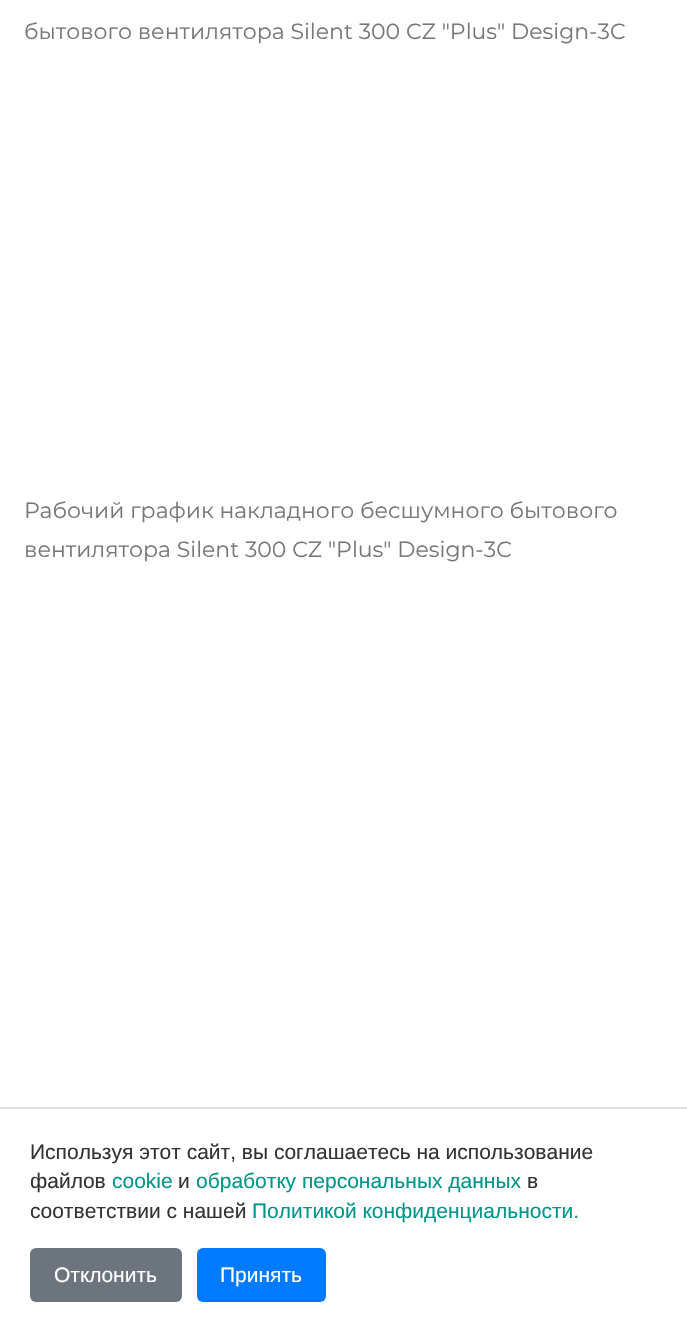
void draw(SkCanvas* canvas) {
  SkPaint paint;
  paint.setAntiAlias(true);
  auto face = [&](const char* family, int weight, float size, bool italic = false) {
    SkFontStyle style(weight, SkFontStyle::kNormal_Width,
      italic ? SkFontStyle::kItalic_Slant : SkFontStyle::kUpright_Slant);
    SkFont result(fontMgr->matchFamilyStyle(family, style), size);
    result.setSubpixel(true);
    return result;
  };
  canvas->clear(0xffffffff);
  paint.setColor(0xffe0e0e0);
  canvas->drawRect(SkRect::MakeXYWH(0, 1107, 687, 2), paint);
  paint.setColor(0xff6c757d);
  canvas->drawRoundRect(SkRect::MakeXYWH(30, 1248, 152, 54), 6, 6, paint);
  paint.setColor(0xff007bff);
  canvas->drawRoundRect(SkRect::MakeXYWH(197, 1248, 129, 54), 6, 6, paint);
  auto f0 = face("Montserrat", 400, 22);
  paint.setColor(0xff777777);
  {
    const struct { const char* s; float x, y; } items[] = {
      {"бытового вентилятора Silent 300 CZ \"Plus\" Design-3C", 24, 39},
      {"Рабочий график накладного бесшумного бытового", 24, 518},
      {"вентилятора Silent 300 CZ \"Plus\" Design-3C", 24, 557},
    };
    for (auto [s, x, y] : items) {
      canvas->drawString(s, x, y, f0, paint);
    }
  }
  auto f1 = face("Liberation Sans", 400, 21);
  paint.setColor(0xff333333);
  canvas->drawString("Используя этот сайт, вы соглашаетесь на использование", 30, 1159, f1, paint);
  canvas->drawString("файлов", 30, 1188, f1, paint);
  paint.setColor(0xff009589);
  canvas->drawString("cookie", 112, 1188, f1, paint);
  paint.setColor(0xff333333);
  canvas->drawString("и", 178, 1188, f1, paint);
  paint.setColor(0xff009589);
  canvas->drawString("обработку персональных данных", 196, 1188, f1, paint);
  paint.setColor(0xff333333);
  canvas->drawString("в", 527, 1188, f1, paint);
  canvas->drawString("соответствии с нашей", 30, 1218, f1, paint);
  paint.setColor(0xff009589);
  canvas->drawString("Политикой конфиденциальности.", 252, 1218, f1, paint);
  paint.setColor(0xffffffff);
  canvas->drawString("Отклонить", 54, 1282, f1, paint);
  canvas->drawString("Принять", 220, 1282, f1, paint);
}
